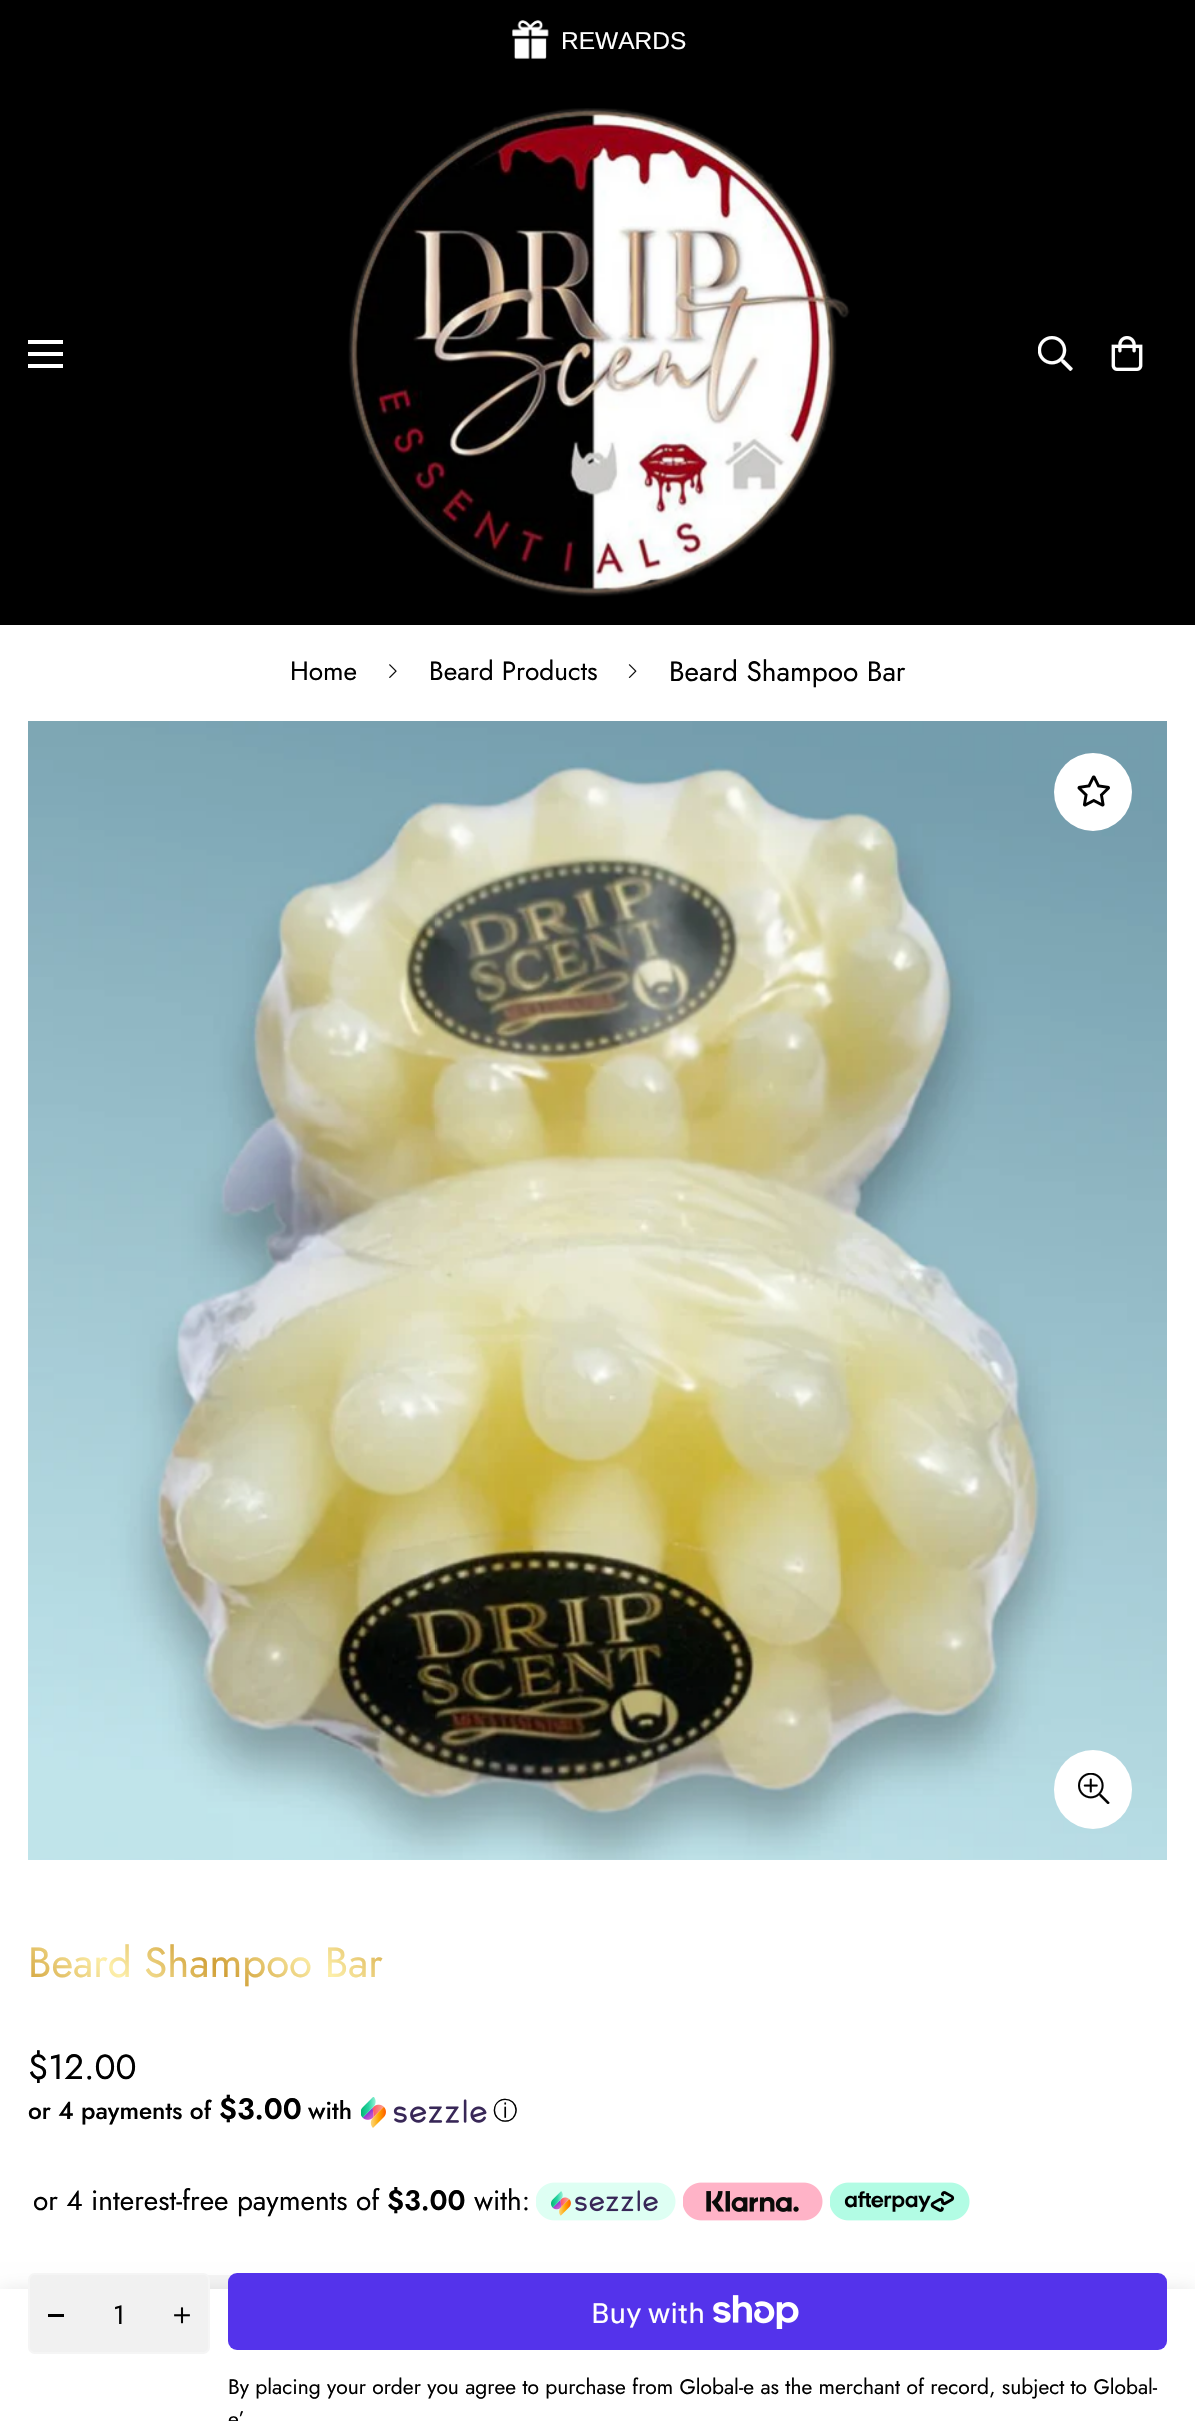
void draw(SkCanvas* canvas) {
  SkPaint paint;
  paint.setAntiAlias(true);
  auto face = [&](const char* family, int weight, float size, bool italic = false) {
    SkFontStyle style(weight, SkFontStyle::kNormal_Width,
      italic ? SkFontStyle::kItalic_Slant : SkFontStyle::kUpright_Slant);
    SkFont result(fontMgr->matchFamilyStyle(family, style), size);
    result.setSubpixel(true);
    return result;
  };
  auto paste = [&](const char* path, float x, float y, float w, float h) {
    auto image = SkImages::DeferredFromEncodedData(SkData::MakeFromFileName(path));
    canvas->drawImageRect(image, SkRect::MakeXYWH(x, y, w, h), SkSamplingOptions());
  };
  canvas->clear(0xffffffff);
  {
    const struct { float x, y, w, h; SkColor color; } items[] = {
      {0, 0, 1195, 625, 0xff000000},
      {28, 352, 35, 4, 0xffffffff},
      {28, 340, 35, 4, 0xffffffff},
      {28, 364, 35, 4, 0xffffffff},
    };
    for (auto [x, y, w, h, color] : items) {
      paint.setColor(color);
      canvas->drawRect(SkRect::MakeXYWH(x, y, w, h), paint);
    }
  }
  paste("img/1.png", 348, 108, 502, 489);
  paste("img/2.png", 1038, 336, 35, 35);
  paste("img/3.png", 1111, 336, 32, 35);
  paste("img/4.png", 512, 20, 37, 39);
  paste("img/5.png", 389, 664, 8, 14);
  paste("img/6.png", 628, 664, 9, 14);
  paste("img/7.png", 28, 721, 1139, 1139);
  canvas->drawRoundRect(SkRect::MakeXYWH(1054, 1750, 78, 79), 39, 39, paint);
  paste("img/8.png", 1078, 1773, 32, 31);
  canvas->drawCircle(1093, 792, 39, paint);
  paste("img/9.png", 1077, 775, 33, 32);
  paste("img/10.png", 361, 2097, 126, 31);
  paste("img/11.png", 536, 2182, 140, 39);
  paste("img/12.png", 683, 2182, 140, 39);
  paste("img/13.png", 830, 2182, 140, 39);
  paint.setColor(0xfff5f5f5);
  canvas->drawRoundRect(SkRect::MakeXYWH(166, 2275, 1001, 81), 7, 7, paint);
  paint.setColor(0x17000000);
  paint.setMaskFilter(SkMaskFilter::MakeBlur(kNormal_SkBlurStyle, 9));
  canvas->drawRect(SkRect::MakeXYWH(0, 2289, 1195, 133), paint);
  paint.setMaskFilter(nullptr);
  paint.setColor(0xffffffff);
  canvas->drawRect(SkRect::MakeXYWH(0, 2289, 1195, 132), paint);
  paint.setColor(0xfff1f1f1);
  canvas->drawRoundRect(SkRect::MakeXYWH(29, 2274, 180, 79), 6, 6, paint);
  paint.setStroke(true);
  paint.setStrokeWidth(2);
  paint.setColor(0xfff5f5f5);
  canvas->drawRoundRect(SkRect::MakeXYWH(29, 2274, 180, 79), 6, 6, paint);
  paint.setStroke(false);
  paint.setColor(0xff000000);
  canvas->drawRect(SkRect::MakeXYWH(48, 2314, 16, 3), paint);
  paste("img/14.png", 174, 2307, 16, 17);
  paint.setColor(0xff5433eb);
  canvas->drawRoundRect(SkRect::MakeXYWH(228, 2273, 939, 77), 9, 9, paint);
  paste("img/15.png", 713, 2295, 86, 34);
  auto f0 = face("Liberation Sans", 400, 24.5f);
  paint.setColor(0xffffffff);
  canvas->drawString("REWARDS", 561, 49, f0, paint);
  auto f1 = face("Jost", 400, 26.25f);
  paint.setColor(0xff000000);
  canvas->drawString("Home", 290, 680, f1, paint);
  canvas->drawString("Beard Products", 429, 680, f1, paint);
  auto f2 = face("Jost", 400, 28);
  canvas->drawString("Beard Shampoo Bar", 669, 681, f2, paint);
  auto f3 = face("Jost", 400, 42);
  {
    const SkColor colors[] = {0xffd09f36, 0xfffdefaa, 0xffd09f36, 0xfffdefaa, 0xffd09f36};
    const float stops[] = {0, 0.25f, 0.5f, 0.75f, 1};
    const SkPoint ends[] = {{106, 2069}, {319, 1857}};
    paint.setShader(SkGradientShader::MakeLinear(ends, colors, stops, 5, SkTileMode::kClamp));
    paint.setAlpha(255);
  }
  canvas->drawString("Beard Shampoo Bar", 28, 1977, f3, paint);
  auto f4 = face("Jost", 400, 35);
  paint.setShader(nullptr);
  paint.setColor(0xff000000);
  canvas->drawString("$12.00", 28, 2079, f4, paint);
  auto f5 = face("Jost", 500, 24.5f);
  canvas->drawString("or 4 payments of", 28, 2119, f5, paint);
  auto f6 = face("Jost", 600, 29.5f);
  canvas->drawString("$3.00", 219, 2119, f6, paint);
  canvas->drawString("with", 308, 2119, f5, paint);
  auto f7 = face("WenQuanYi Zen Hei", 500, 24.5f);
  canvas->drawString("ⓘ", 493, 2119, f7, paint);
  canvas->drawString("or 4 interest-free payments of", 33, 2210, f2, paint);
  auto f8 = face("Jost", 600, 28);
  canvas->drawString("$3.00", 387, 2210, f8, paint);
  canvas->drawString("with:", 474, 2210, f2, paint);
  canvas->drawString("1", 113, 2324, f1, paint);
  auto f9 = face("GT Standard", 400, 28);
  paint.setColor(0xffffffff);
  canvas->drawString("Buy with", 591, 2323, f9, paint);
  auto f10 = face("Jost", 400, 21);
  paint.setColor(0xff000000);
  canvas->drawString("By placing your order you agree to purchase from Global-e as the merchant of record, subject to Global-", 228, 2394, f10, paint);
  canvas->drawString("e’", 228, 2426, f10, paint);
}
